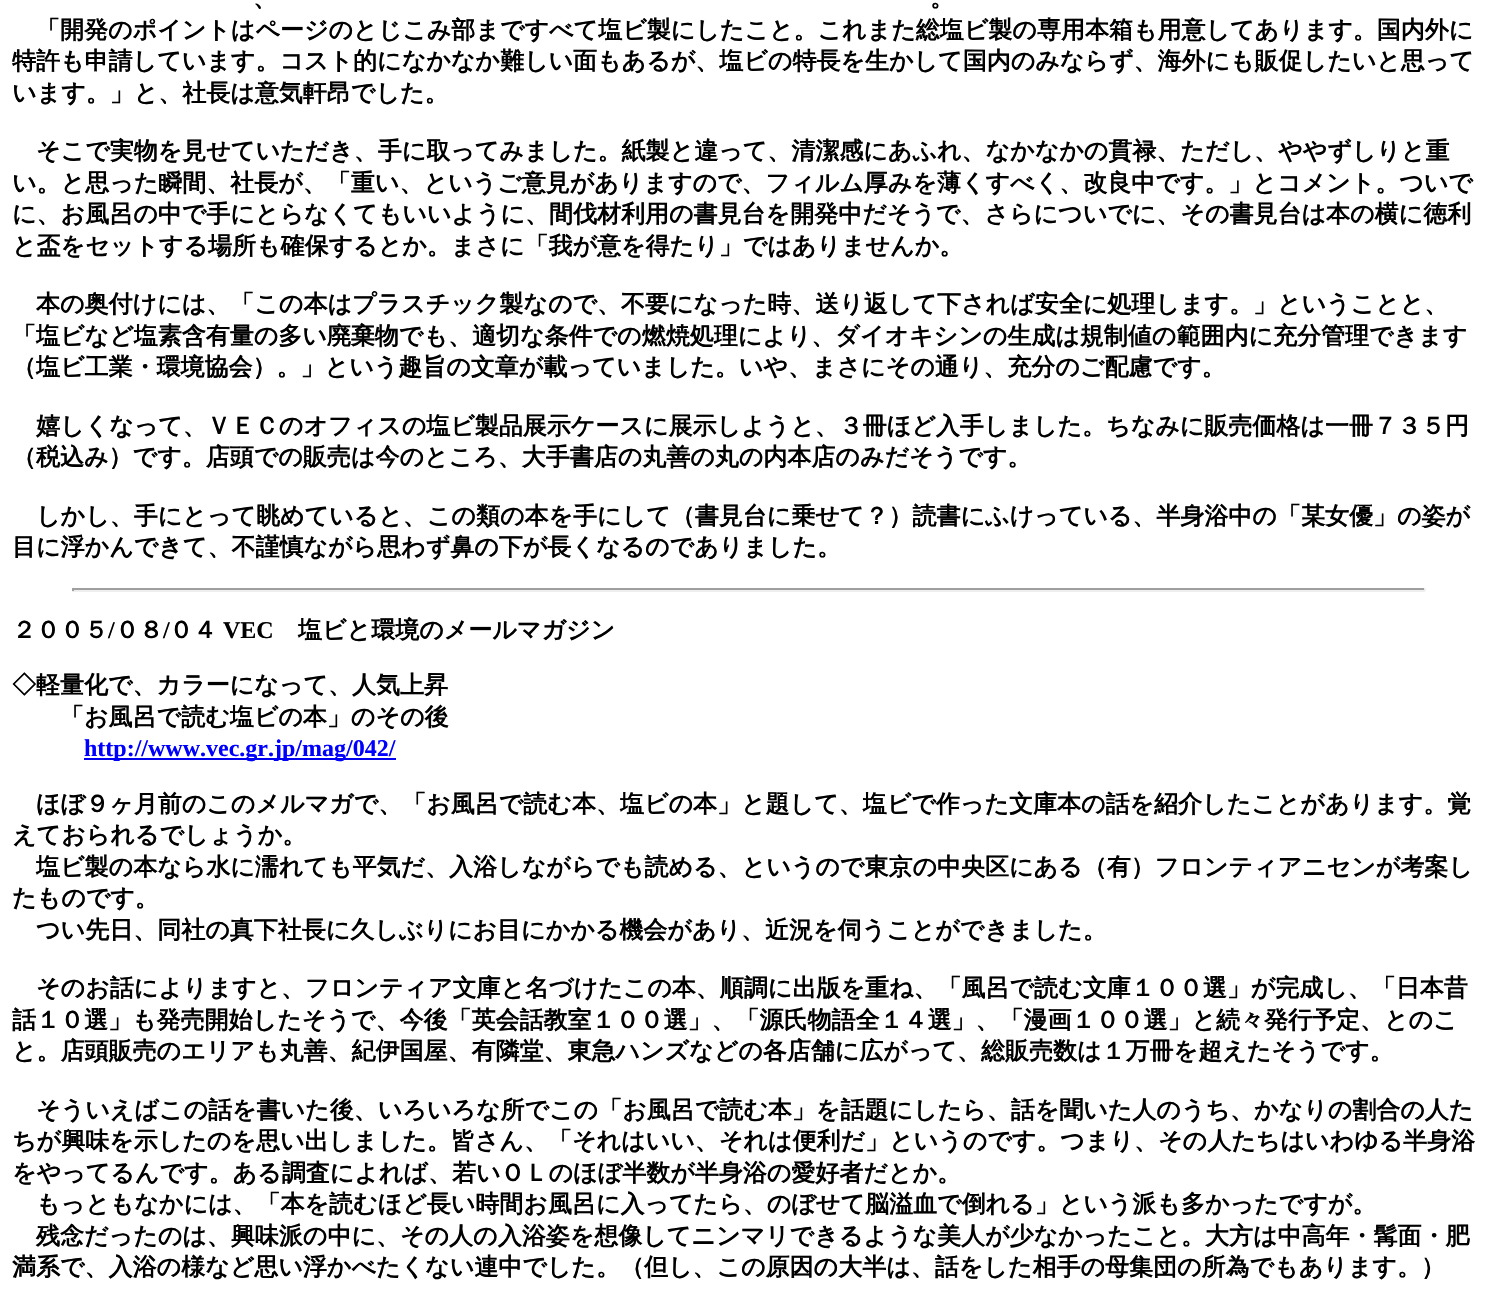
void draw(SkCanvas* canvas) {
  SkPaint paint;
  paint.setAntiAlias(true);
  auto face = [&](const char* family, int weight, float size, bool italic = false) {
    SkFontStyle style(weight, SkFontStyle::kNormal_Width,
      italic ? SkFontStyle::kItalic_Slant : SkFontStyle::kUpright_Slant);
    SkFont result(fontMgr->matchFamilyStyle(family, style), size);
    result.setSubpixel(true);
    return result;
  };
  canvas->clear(0xffffffff);
  {
    const struct { float x, y, w, h; SkColor color; } items[] = {
      {72, 588, 1353, 2, 0xff9f9f9f},
      {1424, 588, 2, 3, 0xffeeeeee},
      {72, 590, 1353, 2, 0xffeeeeee},
      {72, 588, 2, 3, 0xff9f9f9f},
      {84, 758, 312, 2, 0xff0000ee},
    };
    for (auto [x, y, w, h, color] : items) {
      paint.setColor(color);
      canvas->drawRect(SkRect::MakeXYWH(x, y, w, h), paint);
    }
  }
  auto f0 = face("WenQuanYi Zen Hei", 700, 24);
  paint.setColor(0xff000000);
  {
    const struct { const char* s; float x, y; } items[] = {
      {"、", 253, 6},
      {"。", 930, 6},
      {"「開発のポイントはページのとじこみ部まですべて塩ビ製にしたこと。これまた総塩ビ製の専用本箱も用意してあります。国内外に", 36, 38},
      {"特許も申請しています。コスト的になかなか難しい面もあるが、塩ビの特長を生かして国内のみならず、海外にも販促したいと思って", 12, 69},
      {"います。」と、社長は意気軒昂でした。", 12, 101},
      {"そこで実物を見せていただき、手に取ってみました。紙製と違って、清潔感にあふれ、なかなかの貫禄、ただし、ややずしりと重", 36, 159},
      {"い。と思った瞬間、社長が、「重い、というご意見がありますので、フィルム厚みを薄くすべく、改良中です。」とコメント。ついで", 12, 191},
      {"に、お風呂の中で手にとらなくてもいいように、間伐材利用の書見台を開発中だそうで、さらについでに、その書見台は本の横に徳利", 12, 222},
      {"と盃をセットする場所も確保するとか。まさに「我が意を得たり」ではありませんか。", 12, 254},
      {"本の奥付けには、「この本はプラスチック製なので、不要になった時、送り返して下されば安全に処理します。」ということと、", 36, 312},
      {"「塩ビなど塩素含有量の多い廃棄物でも、適切な条件での燃焼処理により、ダイオキシンの生成は規制値の範囲内に充分管理できます", 12, 344},
      {"（塩ビ工業・環境協会）。」という趣旨の文章が載っていました。いや、まさにその通り、充分のご配慮です。", 12, 375},
      {"嬉しくなって、ＶＥＣのオフィスの塩ビ製品展示ケースに展示しようと、３冊ほど入手しました。ちなみに販売価格は一冊７３５円", 36, 434},
      {"（税込み）です。店頭での販売は今のところ、大手書店の丸善の丸の内本店のみだそうです。", 12, 465},
      {"しかし、手にとって眺めていると、この類の本を手にして（書見台に乗せて？）読書にふけっている、半身浴中の「某女優」の姿が", 36, 524},
      {"目に浮かんできて、不謹慎ながら思わず鼻の下が長くなるのでありました。", 12, 555},
      {"２００５", 12, 638},
    };
    for (auto [s, x, y] : items) {
      canvas->drawString(s, x, y, f0, paint);
    }
  }
  auto f1 = face("Liberation Serif", 700, 24);
  canvas->drawString("/", 108, 638, f1, paint);
  canvas->drawString("０８", 115, 638, f0, paint);
  canvas->drawString("/", 163, 638, f1, paint);
  canvas->drawString("０４", 169, 638, f0, paint);
  canvas->drawString("VEC", 223, 638, f1, paint);
  {
    const struct { const char* s; float x, y; } items[] = {
      {"塩ビと環境のメールマガジン", 298, 638},
      {"◇軽量化で、カラーになって、人気上昇", 12, 693},
      {"「お風呂で読む塩ビの本」のその後", 60, 725},
    };
    for (auto [s, x, y] : items) {
      canvas->drawString(s, x, y, f0, paint);
    }
  }
  paint.setColor(0xff0000ff);
  canvas->drawString("http://www.vec.gr.jp/mag/042/", 84, 756, f1, paint);
  paint.setColor(0xff000000);
  {
    const struct { const char* s; float x, y; } items[] = {
      {"ほぼ９ヶ月前のこのメルマガで、「お風呂で読む本、塩ビの本」と題して、塩ビで作った文庫本の話を紹介したことがあります。覚", 36, 812},
      {"えておられるでしょうか。", 12, 843},
      {"塩ビ製の本なら水に濡れても平気だ、入浴しながらでも読める、というので東京の中央区にある（有）フロンティアニセンが考案し", 36, 875},
      {"たものです。", 12, 906},
      {"つい先日、同社の真下社長に久しぶりにお目にかかる機会があり、近況を伺うことができました。", 36, 938},
      {"そのお話によりますと、フロンティア文庫と名づけたこの本、順調に出版を重ね、「風呂で読む文庫１００選」が完成し、「日本昔", 36, 996},
      {"話１０選」も発売開始したそうで、今後「英会話教室１００選」、「源氏物語全１４選」、「漫画１００選」と続々発行予定、とのこ", 12, 1028},
      {"と。店頭販売のエリアも丸善、紀伊国屋、有隣堂、東急ハンズなどの各店舗に広がって、総販売数は１万冊を超えたそうです。", 12, 1059},
      {"そういえばこの話を書いた後、いろいろな所でこの「お風呂で読む本」を話題にしたら、話を聞いた人のうち、かなりの割合の人た", 36, 1118},
      {"ちが興味を示したのを思い出しました。皆さん、「それはいい、それは便利だ」というのです。つまり、その人たちはいわゆる半身浴", 12, 1149},
      {"をやってるんです。ある調査によれば、若いＯＬのほぼ半数が半身浴の愛好者だとか。", 12, 1181},
      {"もっともなかには、「本を読むほど長い時間お風呂に入ってたら、のぼせて脳溢血で倒れる」という派も多かったですが。", 36, 1212},
      {"残念だったのは、興味派の中に、その人の入浴姿を想像してニンマリできるような美人が少なかったこと。大方は中高年・髯面・肥", 36, 1244},
      {"満系で、入浴の様など思い浮かべたくない連中でした。（但し、この原因の大半は、話をした相手の母集団の所為でもあります。）", 12, 1275},
    };
    for (auto [s, x, y] : items) {
      canvas->drawString(s, x, y, f0, paint);
    }
  }
}
